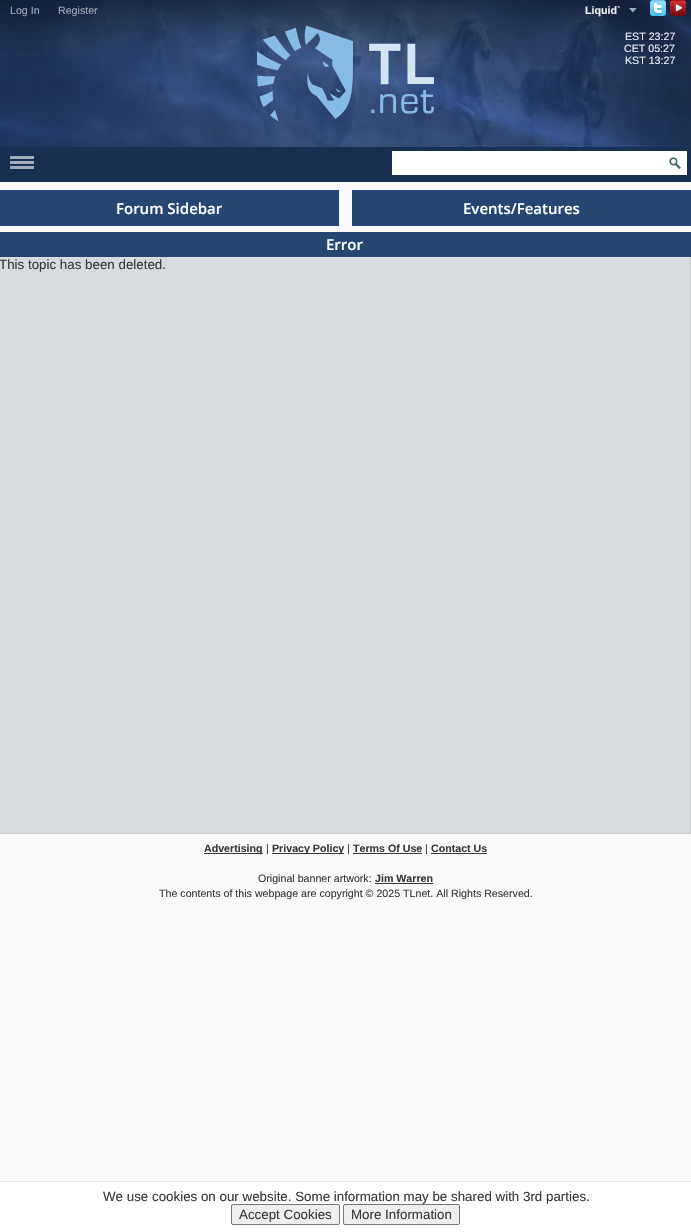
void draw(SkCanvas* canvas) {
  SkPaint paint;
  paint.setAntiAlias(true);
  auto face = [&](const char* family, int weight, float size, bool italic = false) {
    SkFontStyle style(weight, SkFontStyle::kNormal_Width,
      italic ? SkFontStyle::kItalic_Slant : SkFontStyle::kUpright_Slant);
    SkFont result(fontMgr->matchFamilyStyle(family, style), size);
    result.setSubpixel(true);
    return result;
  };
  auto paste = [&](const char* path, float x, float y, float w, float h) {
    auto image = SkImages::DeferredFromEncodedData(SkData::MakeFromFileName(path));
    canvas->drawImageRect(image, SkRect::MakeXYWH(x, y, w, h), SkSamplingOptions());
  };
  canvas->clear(0xfffafafa);
  paste("img/1.png", 0, 0, 691, 147);
  paste("img/2.png", 629, 8, 8, 5);
  paste("img/3.png", 650, 0, 16, 16);
  paste("img/4.png", 670, 0, 16, 16);
  paste("img/5.png", 257, 25, 177, 97);
  paint.setColor(0xff192f51);
  canvas->drawRect(SkRect::MakeXYWH(0, 147, 691, 35), paint);
  paste("img/6.png", 10, 156, 24, 13);
  paint.setColor(0xffffffff);
  canvas->drawRect(SkRect::MakeXYWH(392, 151, 295, 24), paint);
  paste("img/7.png", 669, 157, 12, 12);
  {
    const struct { float x, y, w, h; SkColor color; } items[] = {
      {0, 190, 339, 36, 0xff254673},
      {352, 190, 339, 36, 0xff254673},
      {0, 257, 690, 576, 0xffd8dce0},
    };
    for (auto [x, y, w, h, color] : items) {
      paint.setColor(color);
      canvas->drawRect(SkRect::MakeXYWH(x, y, w, h), paint);
    }
  }
  paint.setStroke(true);
  paint.setStrokeWidth(1);
  paint.setColor(0xffcbcfd1);
  canvas->drawRect(SkRect::MakeXYWH(-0.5f, 232.5f, 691, 601), paint);
  paint.setStroke(false);
  {
    const struct { float x, y, w, h; SkColor color; } items[] = {
      {0, 232, 691, 25, 0xff254673},
      {204, 853, 59, 1, 0xff373837},
      {272, 853, 72, 1, 0xff373837},
      {353, 853, 69, 1, 0xff373837},
      {431, 853, 56, 1, 0xff373837},
      {375, 883, 58, 1, 0xff373837},
      {0, 1182, 691, 50, 0xffffffff},
      {0, 1181, 691, 1, 0xffe3e3e3},
    };
    for (auto [x, y, w, h, color] : items) {
      paint.setColor(color);
      canvas->drawRect(SkRect::MakeXYWH(x, y, w, h), paint);
    }
  }
  paint.setColor(0xffefefef);
  canvas->drawRoundRect(SkRect::MakeXYWH(231.5f, 1204.5f, 108, 20), 1.5f, 1.5f, paint);
  paint.setStroke(true);
  paint.setColor(0xff767676);
  canvas->drawRoundRect(SkRect::MakeXYWH(231.5f, 1204.5f, 108, 20), 1.5f, 1.5f, paint);
  paint.setStroke(false);
  paint.setColor(0xffefefef);
  canvas->drawRoundRect(SkRect::MakeXYWH(343.5f, 1204.5f, 116, 20), 1.5f, 1.5f, paint);
  paint.setStroke(true);
  paint.setColor(0xff767676);
  canvas->drawRoundRect(SkRect::MakeXYWH(343.5f, 1204.5f, 116, 20), 1.5f, 1.5f, paint);
  auto f0 = face("Liberation Sans", 400, 10.65f);
  paint.setStroke(false);
  paint.setColor(0xffa3acba);
  canvas->drawString("Log In", 10, 14, f0, paint);
  canvas->drawString("Register", 58, 14, f0, paint);
  auto f1 = face("Liberation Sans", 700, 10.65f);
  paint.setColor(0xffebeef1);
  canvas->drawString("Liquid`", 585, 14, f1, paint);
  {
    const struct { const char* s; float x, y; } items[] = {
      {"EST 23:27", 625, 40},
      {"CET 05:27", 624, 52},
      {"KST 13:27", 625, 64},
    };
    for (auto [s, x, y] : items) {
      canvas->drawString(s, x, y, f0, paint);
    }
  }
  auto f2 = face("Open Sans", 600, 15);
  paint.setColor(0xffffffff);
  {
    const struct { const char* s; float x, y; } items[] = {
      {"Forum Sidebar", 116, 214},
      {"Events/Features", 463, 214},
      {"Error", 326, 250},
    };
    for (auto [s, x, y] : items) {
      canvas->drawString(s, x, y, f2, paint);
    }
  }
  auto f3 = face("Liberation Sans", 400, 13.35f);
  paint.setColor(0xff373837);
  canvas->drawString("This topic has been deleted.", -1, 269, f3, paint);
  canvas->drawString("Advertising", 204, 852, f1, paint);
  canvas->drawString("|", 266, 852, f0, paint);
  canvas->drawString("Privacy Policy", 272, 852, f1, paint);
  canvas->drawString("|", 347, 852, f0, paint);
  canvas->drawString("Terms Of Use", 353, 852, f1, paint);
  canvas->drawString("|", 425, 852, f0, paint);
  canvas->drawString("Contact Us", 431, 852, f1, paint);
  canvas->drawString("Original banner artwork:", 258, 882, f0, paint);
  canvas->drawString("Jim Warren", 375, 882, f1, paint);
  canvas->drawString("The contents of this webpage are copyright © 2025 TLnet. All Rights Reserved.", 159, 897, f0, paint);
  {
    const struct { const char* s; float x, y; } items[] = {
      {"We use cookies on our website. Some information may be shared with 3rd parties.", 103, 1201},
      {"Accept Cookies", 239, 1219},
      {"More Information", 351, 1219},
    };
    for (auto [s, x, y] : items) {
      canvas->drawString(s, x, y, f3, paint);
    }
  }
}
